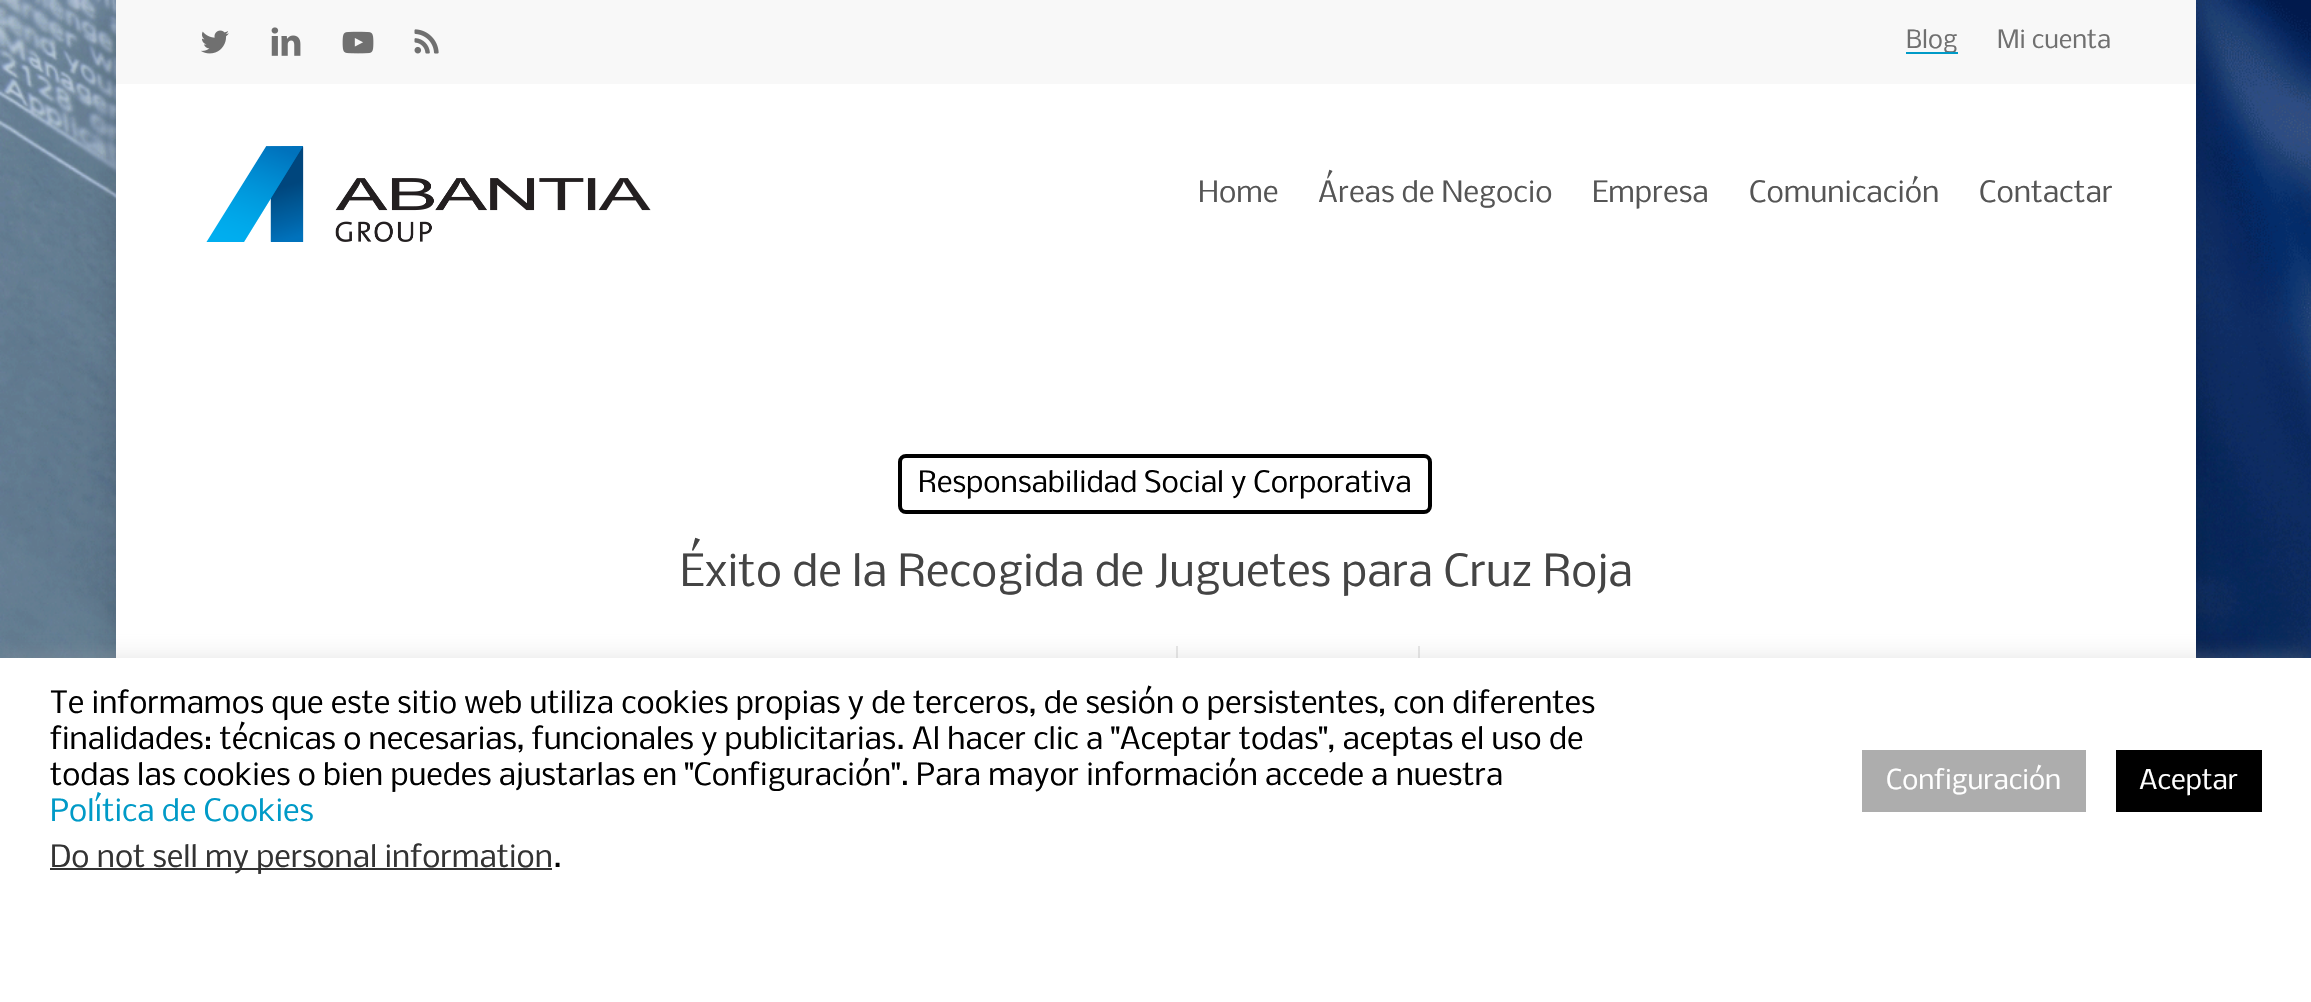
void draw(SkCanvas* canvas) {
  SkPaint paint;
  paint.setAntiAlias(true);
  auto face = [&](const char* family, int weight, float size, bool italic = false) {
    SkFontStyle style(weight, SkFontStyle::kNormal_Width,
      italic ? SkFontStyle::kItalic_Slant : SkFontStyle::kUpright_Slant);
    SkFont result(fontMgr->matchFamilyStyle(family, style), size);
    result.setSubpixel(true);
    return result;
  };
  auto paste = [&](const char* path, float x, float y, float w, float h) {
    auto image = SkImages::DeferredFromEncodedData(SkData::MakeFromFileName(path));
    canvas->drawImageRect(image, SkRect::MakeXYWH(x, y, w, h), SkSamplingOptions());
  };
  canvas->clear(0xffffffff);
  paste("img/1.png", 0, 0, 2311, 658);
  paint.setColor(0x26000000);
  paint.setMaskFilter(SkMaskFilter::MakeBlur(kNormal_SkBlurStyle, 15));
  canvas->drawRect(SkRect::MakeXYWH(116, 0, 2080, 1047), paint);
  paint.setMaskFilter(nullptr);
  paint.setColor(0xfff8f8f8);
  canvas->drawRect(SkRect::MakeXYWH(116, 0, 2080, 84), paint);
  paste("img/2.png", 201, 30, 28, 24);
  paste("img/3.png", 271, 27, 30, 29);
  paste("img/4.png", 342, 31, 32, 23);
  paste("img/5.png", 414, 29, 25, 25);
  paint.setColor(0xffffffff);
  canvas->drawRect(SkRect::MakeXYWH(116, 84, 2080, 574), paint);
  paste("img/6.png", 206, 146, 445, 96);
  paint.setStroke(true);
  paint.setStrokeWidth(4);
  paint.setColor(0xff000000);
  canvas->drawRoundRect(SkRect::MakeXYWH(900, 456, 530, 56), 6, 6, paint);
  paint.setStroke(false);
  paint.setColor(0xffe6e6e6);
  canvas->drawRect(SkRect::MakeXYWH(1176, 646, 2, 12), paint);
  canvas->drawRect(SkRect::MakeXYWH(1418, 646, 2, 12), paint);
  paint.setColor(0x4dacabab);
  paint.setMaskFilter(SkMaskFilter::MakeBlur(kNormal_SkBlurStyle, 10));
  canvas->drawRect(SkRect::MakeXYWH(0, 656, 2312, 344), paint);
  paint.setMaskFilter(nullptr);
  {
    const struct { float x, y, w, h; SkColor color; } items[] = {
      {0, 658, 2311, 344, 0xffffffff},
      {50, 868, 502, 2, 0xff333333},
      {1862, 750, 224, 62, 0xffadadad},
      {2116, 750, 146, 62, 0xff000000},
    };
    for (auto [x, y, w, h, color] : items) {
      paint.setColor(color);
      canvas->drawRect(SkRect::MakeXYWH(x, y, w, h), paint);
    }
  }
  auto f0 = face("Nobile", 400, 24);
  paint.setColor(0xff707070);
  canvas->drawString("Blog", 1906, 48, f0, paint);
  paint.setColor(0xff009ac7);
  canvas->drawRect(SkRect::MakeXYWH(1906, 52, 52, 2), paint);
  paint.setColor(0xff707070);
  canvas->drawString("Mi cuenta", 1997, 48, f0, paint);
  auto f1 = face("Nobile", 400, 28);
  paint.setColor(0xff555555);
  {
    const struct { const char* s; float x, y; } items[] = {
      {"Home", 1198, 202},
      {"Áreas de Negocio", 1318, 202},
      {"Empresa", 1592, 202},
      {"Comunicación", 1749, 202},
      {"Contactar", 1979, 202},
    };
    for (auto [s, x, y] : items) {
      canvas->drawString(s, x, y, f1, paint);
    }
  }
  paint.setColor(0xff000000);
  canvas->drawString("Responsabilidad Social y Corporativa", 918, 492, f1, paint);
  auto f2 = face("Nobile", 400, 42);
  paint.setColor(0xff444444);
  canvas->drawString("Éxito de la Recogida de Juguetes para Cruz Roja", 680, 586, f2, paint);
  auto f3 = face("Nobile", 400, 29.33f);
  paint.setColor(0xff000000);
  {
    const struct { const char* s; float x, y; } items[] = {
      {"Te informamos que este sitio web utiliza cookies propias y de terceros, de sesión o persistentes, con diferentes", 50, 713},
      {"finalidades: técnicas o necesarias, funcionales y publicitarias. Al hacer clic a \"Aceptar todas\", aceptas el uso de", 50, 749},
      {"todas las cookies o bien puedes ajustarlas en \"Configuración\". Para mayor información accede a nuestra", 50, 785},
    };
    for (auto [s, x, y] : items) {
      canvas->drawString(s, x, y, f3, paint);
    }
  }
  paint.setColor(0xff009ac7);
  canvas->drawString("Política de Cookies", 50, 821, f3, paint);
  paint.setColor(0xff333333);
  canvas->drawString("Do not sell my personal information", 50, 867, f3, paint);
  paint.setColor(0xff000000);
  canvas->drawString(".", 553, 867, f3, paint);
  auto f4 = face("Nobile", 400, 26);
  paint.setColor(0xffffffff);
  canvas->drawString("Configuración", 1886, 789, f4, paint);
  canvas->drawString("Aceptar", 2139, 789, f4, paint);
}
